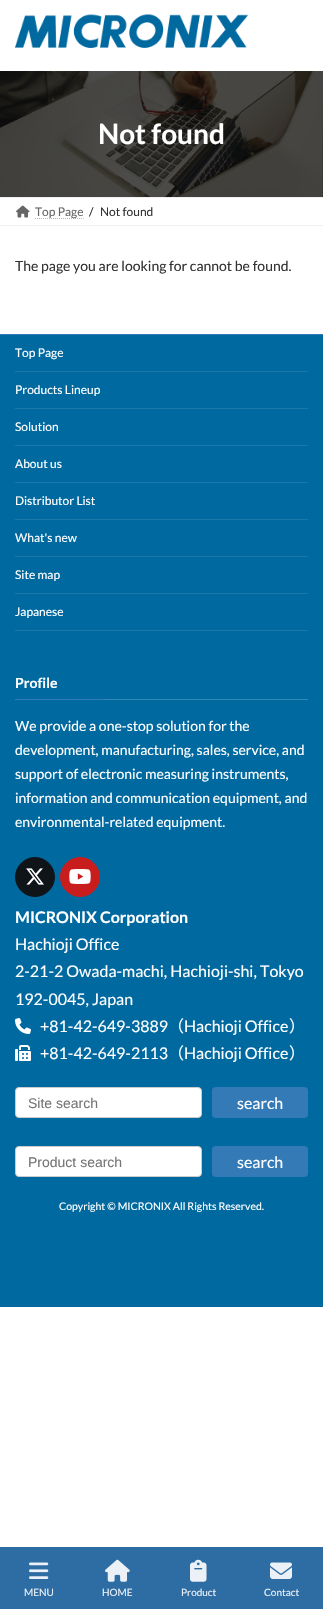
void draw(SkCanvas* canvas) {
  SkPaint paint;
  paint.setAntiAlias(true);
  auto face = [&](const char* family, int weight, float size, bool italic = false) {
    SkFontStyle style(weight, SkFontStyle::kNormal_Width,
      italic ? SkFontStyle::kItalic_Slant : SkFontStyle::kUpright_Slant);
    SkFont result(fontMgr->matchFamilyStyle(family, style), size);
    result.setSubpixel(true);
    return result;
  };
  auto paste = [&](const char* path, float x, float y, float w, float h) {
    auto image = SkImages::DeferredFromEncodedData(SkData::MakeFromFileName(path));
    canvas->drawImageRect(image, SkRect::MakeXYWH(x, y, w, h), SkSamplingOptions());
  };
  auto shape = [&](const char* data, bool evenOdd = false) {
    SkPath result = *SkParsePath::FromSVGString(data);
    if (evenOdd) result.setFillType(SkPathFillType::kEvenOdd);
    return result;
  };
  canvas->clear(0xffffffff);
  paste("img/1.png", 15, 14, 233, 34);
  paste("img/2.png", 0, 71, 323, 126);
  paint.setColor(0xfff0f0f0);
  canvas->drawRect(SkRect::MakeXYWH(0, 197, 323, 1), paint);
  canvas->drawRect(SkRect::MakeXYWH(0, 225, 323, 1), paint);
  paste("img/3.png", 16, 205, 14, 13);
  paint.setStroke(true);
  paint.setStrokeWidth(1);
  paint.setColor(0xffb3b3b3);
  paint.setPathEffect(SkDashPathEffect::Make({{1, 1}}, 0));
  canvas->drawPath(shape("M35 218.5H83.5"), paint);
  paint.setPathEffect(nullptr);
  paint.setStroke(false);
  {
    const struct { float x, y, w, h; SkColor color; } items[] = {
      {0, 335, 323, 972, 0xff0069a0},
      {0, 334, 323, 1, 0xff337ab7},
      {15, 371, 293, 1, 0xff1a78aa},
      {15, 408, 293, 1, 0xff1a78aa},
      {15, 445, 293, 1, 0xff1a78aa},
      {15, 482, 293, 1, 0xff1a78aa},
      {15, 519, 293, 1, 0xff1a78aa},
      {15, 556, 293, 1, 0xff1a78aa},
      {15, 593, 293, 1, 0xff1a78aa},
      {15, 630, 293, 1, 0xff1a78aa},
      {103, 699, 205, 1, 0xff3387b3},
      {15, 699, 88, 1, 0xff337ab7},
    };
    for (auto [x, y, w, h, color] : items) {
      paint.setColor(color);
      canvas->drawRect(SkRect::MakeXYWH(x, y, w, h), paint);
    }
  }
  paint.setColor(0xff0f1419);
  canvas->drawCircle(35, 877, 19.5f, paint);
  paint.setStroke(true);
  canvas->drawCircle(35, 877, 19.5f, paint);
  paste("img/4.png", 26, 868, 18, 17);
  paint.setStroke(false);
  paint.setColor(0xffc81d1c);
  canvas->drawCircle(80, 877, 19.5f, paint);
  paint.setStroke(true);
  canvas->drawCircle(80, 877, 19.5f, paint);
  paste("img/5.png", 69, 869, 22, 15);
  paste("img/6.png", 15, 1018, 16, 16);
  paste("img/7.png", 15, 1045, 16, 16);
  paint.setStroke(false);
  paint.setColor(0xffffffff);
  canvas->drawRoundRect(SkRect::MakeXYWH(15.5f, 1087.5f, 186, 30), 3.5f, 3.5f, paint);
  paint.setStroke(true);
  paint.setColor(0xffcccccc);
  canvas->drawRoundRect(SkRect::MakeXYWH(15.5f, 1087.5f, 186, 30), 3.5f, 3.5f, paint);
  paint.setStroke(false);
  paint.setColor(0xff337ab7);
  canvas->drawRoundRect(SkRect::MakeXYWH(212, 1087, 96, 31), 4, 4, paint);
  paint.setColor(0xffffffff);
  canvas->drawRoundRect(SkRect::MakeXYWH(15.5f, 1146.5f, 186, 30), 3.5f, 3.5f, paint);
  paint.setStroke(true);
  paint.setColor(0xffcccccc);
  canvas->drawRoundRect(SkRect::MakeXYWH(15.5f, 1146.5f, 186, 30), 3.5f, 3.5f, paint);
  paint.setStroke(false);
  paint.setColor(0xff337ab7);
  canvas->drawRoundRect(SkRect::MakeXYWH(212, 1146, 96, 31), 4, 4, paint);
  paint.setColor(0xff2e6da4);
  canvas->drawRect(SkRect::MakeXYWH(0, 1547, 323, 62), paint);
  paste("img/8.png", 29, 1562, 20, 17);
  paste("img/9.png", 105, 1559, 25, 23);
  paste("img/10.png", 190, 1559, 17, 23);
  paste("img/11.png", 270, 1562, 22, 17);
  auto f0 = face("Lato", 700, 28);
  paint.setColor(0xffffffff);
  canvas->drawString("Not found", 98, 144, f0, paint);
  auto f1 = face("Lato", 400, 12);
  paint.setColor(0xff666666);
  canvas->drawString("Top Page", 35, 216, f1, paint);
  paint.setColor(0xff333333);
  canvas->drawString("/", 89, 216, f1, paint);
  canvas->drawString("Not found", 100, 216, f1, paint);
  auto f2 = face("Lato", 400, 14);
  canvas->drawString("The page you are looking for cannot be found.", 15, 271, f2, paint);
  paint.setColor(0xffffffff);
  {
    const struct { const char* s; float x, y; } items[] = {
      {"Top Page", 15, 357},
      {"Products Lineup", 15, 394},
      {"Solution", 15, 431},
      {"About us", 15, 468},
      {"Distributor List", 15, 505},
      {"What's new", 15, 542},
      {"Site map", 15, 579},
      {"Japanese", 15, 616},
    };
    for (auto [s, x, y] : items) {
      canvas->drawString(s, x, y, f1, paint);
    }
  }
  auto f3 = face("Lato", 700, 14);
  canvas->drawString("Profile", 15, 688, f3, paint);
  {
    const struct { const char* s; float x, y; } items[] = {
      {"We provide a one-stop solution for the", 15, 731},
      {"development, manufacturing, sales, service, and", 15, 755},
      {"support of electronic measuring instruments,", 15, 779},
      {"information and communication equipment, and", 15, 803},
      {"environmental-related equipment.", 15, 827},
    };
    for (auto [s, x, y] : items) {
      canvas->drawString(s, x, y, f2, paint);
    }
  }
  auto f4 = face("Lato", 700, 16);
  canvas->drawString("MICRONIX Corporation", 15, 923, f4, paint);
  auto f5 = face("Lato", 400, 16);
  {
    const struct { const char* s; float x, y; } items[] = {
      {"Hachioji Office", 15, 950},
      {"2-21-2 Owada-machi, Hachioji-shi, Tokyo", 15, 977},
      {"192-0045, Japan", 15, 1005},
      {"+81-42-649-3889", 40, 1032},
    };
    for (auto [s, x, y] : items) {
      canvas->drawString(s, x, y, f5, paint);
    }
  }
  auto f6 = face("Noto Sans JP", 400, 16);
  canvas->drawString("（", 168, 1032, f6, paint);
  canvas->drawString("Hachioji Office", 184, 1032, f5, paint);
  canvas->drawString("）", 289, 1032, f6, paint);
  canvas->drawString("+81-42-649-2113", 40, 1059, f5, paint);
  canvas->drawString("（", 168, 1059, f6, paint);
  canvas->drawString("Hachioji Office", 184, 1059, f5, paint);
  canvas->drawString("）", 289, 1059, f6, paint);
  auto f7 = face("Liberation Sans", 400, 14);
  paint.setColor(0xff757575);
  canvas->drawString("Site search", 28, 1108, f7, paint);
  paint.setColor(0xffffffff);
  canvas->drawString("search", 237, 1109, f5, paint);
  paint.setColor(0xff757575);
  canvas->drawString("Product search", 28, 1167, f7, paint);
  paint.setColor(0xffffffff);
  canvas->drawString("search", 237, 1168, f5, paint);
  auto f8 = face("Lato", 400, 10.5f);
  canvas->drawString("Copyright © MICRONIX All Rights Reserved.", 59, 1210, f8, paint);
  auto f9 = face("Lato", 400, 10);
  paint.setColor(0xffeaf0f6);
  {
    const struct { const char* s; float x, y; } items[] = {
      {"MENU", 24, 1596},
      {"HOME", 102, 1596},
      {"Product", 181, 1596},
      {"Contact", 264, 1596},
    };
    for (auto [s, x, y] : items) {
      canvas->drawString(s, x, y, f9, paint);
    }
  }
}
